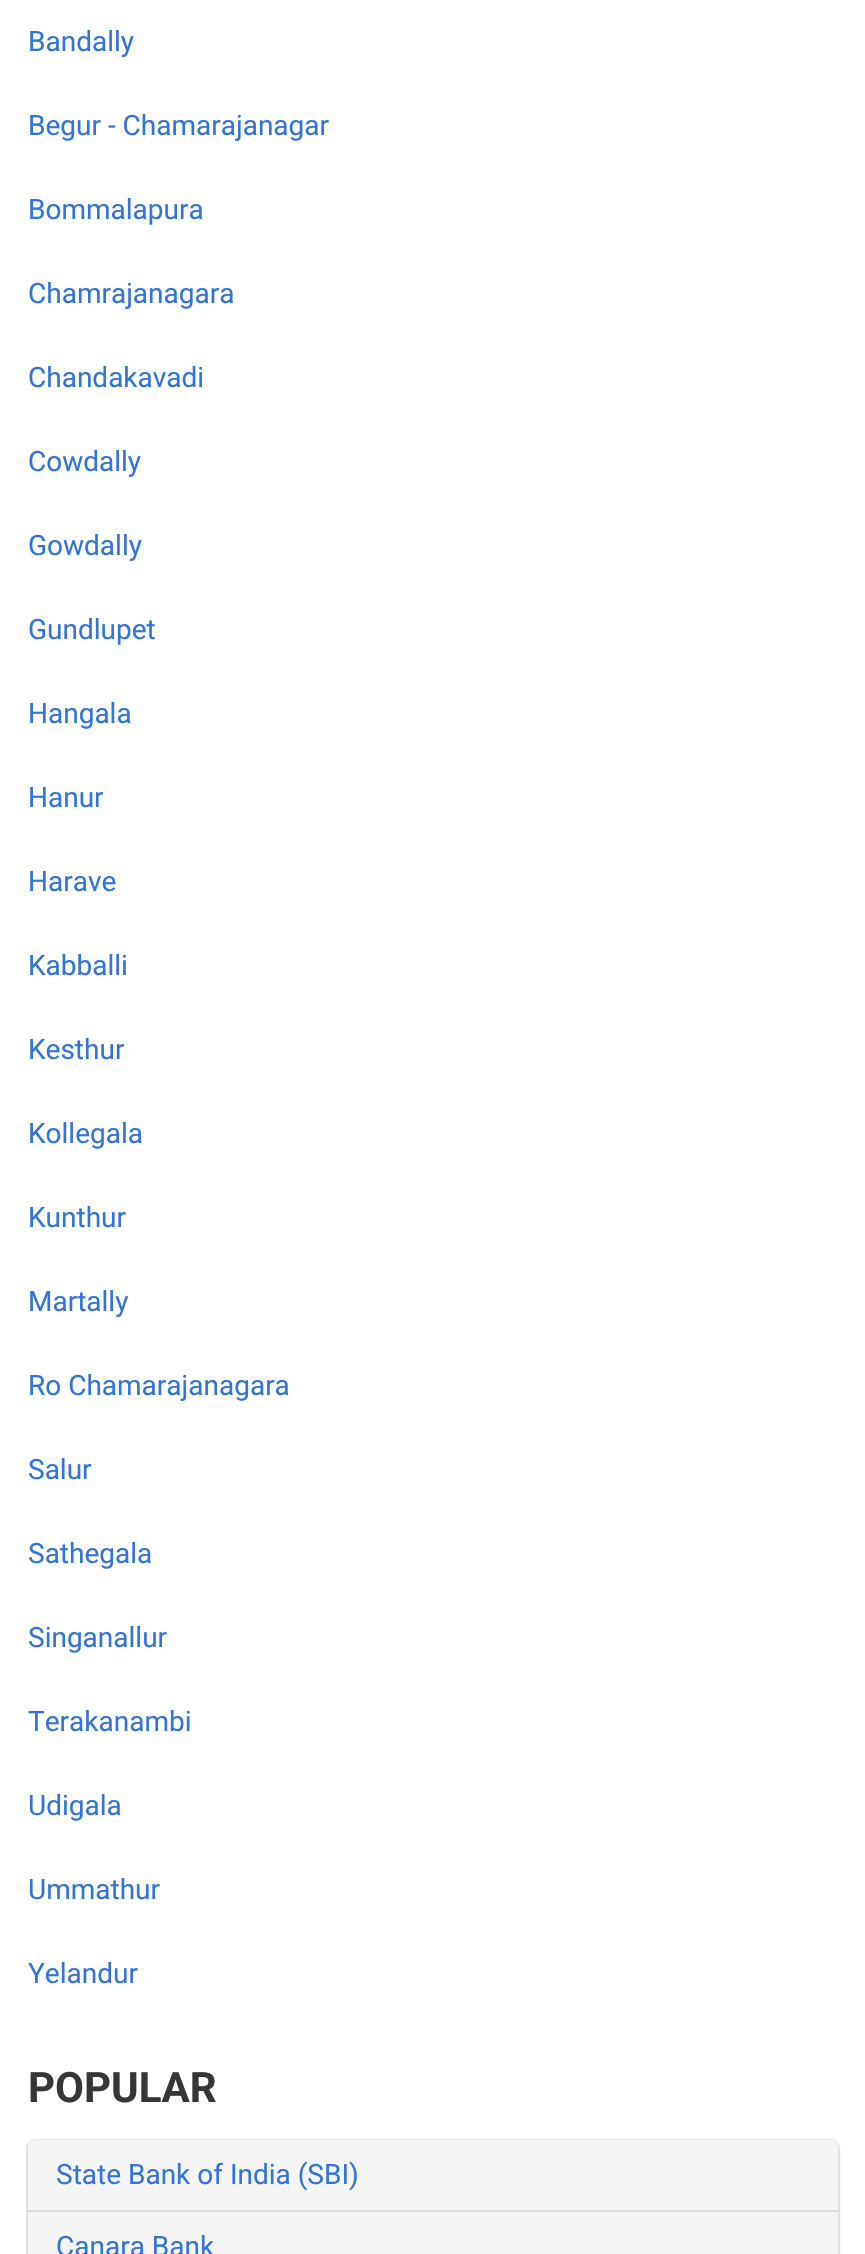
void draw(SkCanvas* canvas) {
  SkPaint paint;
  paint.setAntiAlias(true);
  auto face = [&](const char* family, int weight, float size, bool italic = false) {
    SkFontStyle style(weight, SkFontStyle::kNormal_Width,
      italic ? SkFontStyle::kItalic_Slant : SkFontStyle::kUpright_Slant);
    SkFont result(fontMgr->matchFamilyStyle(family, style), size);
    result.setSubpixel(true);
    return result;
  };
  auto shape = [&](const char* data, bool evenOdd = false) {
    SkPath result = *SkParsePath::FromSVGString(data);
    if (evenOdd) result.setFillType(SkPathFillType::kEvenOdd);
    return result;
  };
  canvas->clear(0xffffffff);
  paint.setStroke(true);
  paint.setStrokeWidth(2);
  paint.setColor(0xffe7e7e7);
  canvas->drawRoundRect(SkRect::MakeXYWH(27, 2140, 812, 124), 8, 8, paint);
  paint.setStroke(false);
  paint.setColor(0x1a0a0a0a);
  paint.setMaskFilter(SkMaskFilter::MakeBlur(kNormal_SkBlurStyle, 2.5f));
  canvas->drawRoundRect(SkRect::MakeXYWH(28, 2144, 810, 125), 7, 7, paint);
  paint.setMaskFilter(nullptr);
  paint.setColor(0xfff5f5f5);
  canvas->drawPath(shape("M35 2140H831C835 2140 838 2143 838 2147V2212H28V2147C28 2143 31 2140 35 2140Z"), paint);
  paint.setColor(0xffdbdbdb);
  canvas->drawRect(SkRect::MakeXYWH(28, 2210, 810, 2), paint);
  paint.setColor(0xfff5f5f5);
  canvas->drawRect(SkRect::MakeXYWH(28, 2212, 810, 42), paint);
  auto f0 = face("Roboto", 400, 28);
  paint.setColor(0xff3273dc);
  {
    const struct { const char* s; float x, y; } items[] = {
      {"Bandally", 28, 51},
      {"Begur - Chamarajanagar", 28, 135},
      {"Bommalapura", 28, 219},
      {"Chamrajanagara", 28, 303},
      {"Chandakavadi", 28, 387},
      {"Cowdally", 28, 471},
      {"Gowdally", 28, 555},
      {"Gundlupet", 28, 639},
      {"Hangala", 28, 723},
      {"Hanur", 28, 807},
      {"Harave", 28, 891},
      {"Kabballi", 28, 975},
      {"Kesthur", 28, 1059},
      {"Kollegala", 28, 1143},
      {"Kunthur", 28, 1227},
      {"Martally", 28, 1311},
      {"Ro Chamarajanagara", 28, 1395},
      {"Salur", 28, 1479},
      {"Sathegala", 28, 1563},
      {"Singanallur", 28, 1647},
      {"Terakanambi", 28, 1731},
      {"Udigala", 28, 1815},
      {"Ummathur", 28, 1899},
      {"Yelandur", 28, 1983},
    };
    for (auto [s, x, y] : items) {
      canvas->drawString(s, x, y, f0, paint);
    }
  }
  auto f1 = face("Roboto", 700, 42);
  paint.setColor(0xff363636);
  canvas->drawString("POPULAR", 28, 2102, f1, paint);
  paint.setColor(0xff3273dc);
  canvas->drawString("State Bank of India (SBI)", 56, 2184, f0, paint);
  canvas->drawString("Canara Bank", 56, 2256, f0, paint);
}
